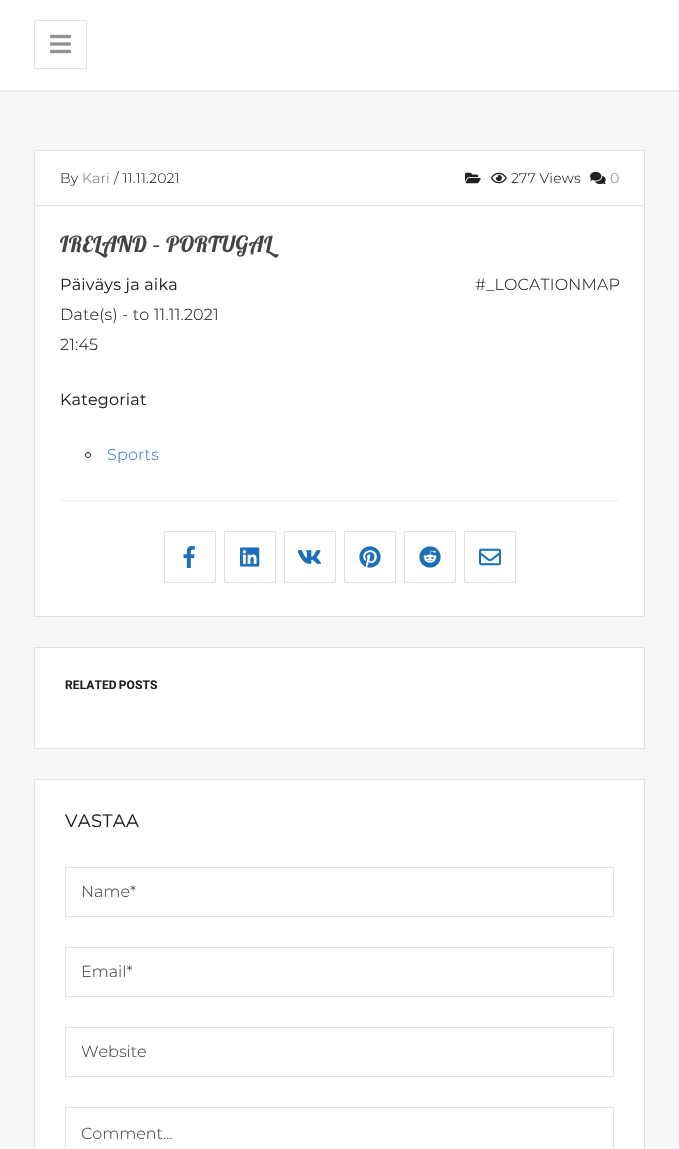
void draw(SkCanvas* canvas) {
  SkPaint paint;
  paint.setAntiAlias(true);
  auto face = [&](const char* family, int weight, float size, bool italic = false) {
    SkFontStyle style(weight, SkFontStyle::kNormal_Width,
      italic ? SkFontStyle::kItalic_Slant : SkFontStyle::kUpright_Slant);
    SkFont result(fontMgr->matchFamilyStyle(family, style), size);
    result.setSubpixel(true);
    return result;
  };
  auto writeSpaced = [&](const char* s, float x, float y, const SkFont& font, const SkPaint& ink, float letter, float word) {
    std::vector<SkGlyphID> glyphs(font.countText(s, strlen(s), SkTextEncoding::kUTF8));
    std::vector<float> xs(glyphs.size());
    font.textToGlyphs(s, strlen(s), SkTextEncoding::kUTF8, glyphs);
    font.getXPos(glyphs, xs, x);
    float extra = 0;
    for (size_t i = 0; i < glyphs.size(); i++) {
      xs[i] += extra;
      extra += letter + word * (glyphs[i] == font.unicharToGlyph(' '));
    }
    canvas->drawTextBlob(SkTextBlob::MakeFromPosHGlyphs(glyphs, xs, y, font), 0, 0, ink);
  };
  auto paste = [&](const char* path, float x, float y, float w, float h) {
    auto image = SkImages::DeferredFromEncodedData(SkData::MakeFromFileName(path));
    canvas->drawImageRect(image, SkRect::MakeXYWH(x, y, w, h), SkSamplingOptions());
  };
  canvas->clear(0xffffffff);
  paint.setColor(0xfff7f7f7);
  canvas->drawRect(SkRect::MakeXYWH(0, 90, 679, 1059), paint);
  canvas->save();
  canvas->clipRect(SkRect::MakeXYWH(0, 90, 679, 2));
  paint.setColor(0x40a1a1a1);
  paint.setMaskFilter(SkMaskFilter::MakeBlur(kNormal_SkBlurStyle, 1));
  canvas->drawRect(SkRect::MakeXYWH(0, 1, 679, 90), paint);
  paint.setMaskFilter(nullptr);
  canvas->restore();
  paint.setStroke(true);
  paint.setStrokeWidth(1);
  paint.setColor(0xffe1e1e1);
  canvas->drawRect(SkRect::MakeXYWH(34.5f, 20.5f, 52, 48), paint);
  paste("img/1.png", 50, 34, 21, 20);
  paint.setStroke(false);
  {
    const struct { float x, y, w, h; SkColor color; } items[] = {
      {35, 151, 609, 54, 0xffffffff},
      {34, 150, 611, 1, 0xffe1e1e1},
      {644, 150, 1, 55, 0xffe1e1e1},
      {34, 150, 1, 55, 0xffe1e1e1},
    };
    for (auto [x, y, w, h, color] : items) {
      paint.setColor(color);
      canvas->drawRect(SkRect::MakeXYWH(x, y, w, h), paint);
    }
  }
  paste("img/2.png", 465, 172, 16, 12);
  paste("img/3.png", 491, 172, 16, 12);
  paste("img/4.png", 590, 171, 16, 14);
  paint.setColor(0xffffffff);
  canvas->drawRect(SkRect::MakeXYWH(34.5f, 205.5f, 610, 411), paint);
  paint.setStroke(true);
  paint.setColor(0xffe1e1e1);
  canvas->drawRect(SkRect::MakeXYWH(34.5f, 205.5f, 610, 411), paint);
  paint.setColor(0xff212121);
  canvas->drawCircle(88, 455, 2.5f, paint);
  paint.setStroke(false);
  paint.setColor(0xfff0f0f0);
  canvas->drawRect(SkRect::MakeXYWH(60, 500, 559, 1), paint);
  paint.setStroke(true);
  paint.setColor(0xffe1e1e1);
  canvas->drawRect(SkRect::MakeXYWH(164.5f, 531.5f, 51, 51), paint);
  paste("img/5.png", 183, 546, 12, 22);
  canvas->drawRect(SkRect::MakeXYWH(224.5f, 531.5f, 51, 51), paint);
  paste("img/6.png", 240, 547, 20, 20);
  canvas->drawRect(SkRect::MakeXYWH(284.5f, 531.5f, 51, 51), paint);
  paste("img/7.png", 297, 550, 24, 14);
  canvas->drawRect(SkRect::MakeXYWH(344.5f, 531.5f, 51, 51), paint);
  paste("img/8.png", 359, 546, 22, 22);
  canvas->drawRect(SkRect::MakeXYWH(404.5f, 531.5f, 51, 51), paint);
  paste("img/9.png", 419, 546, 22, 22);
  canvas->drawRect(SkRect::MakeXYWH(464.5f, 531.5f, 51, 51), paint);
  paste("img/10.png", 479, 548, 22, 18);
  paint.setStroke(false);
  paint.setColor(0xffffffff);
  canvas->drawRect(SkRect::MakeXYWH(34.5f, 647.5f, 610, 101), paint);
  paint.setStroke(true);
  paint.setColor(0xffe1e1e1);
  canvas->drawRect(SkRect::MakeXYWH(34.5f, 647.5f, 610, 101), paint);
  paint.setStroke(false);
  paint.setColor(0xffffffff);
  canvas->drawRect(SkRect::MakeXYWH(34.5f, 779.5f, 610, 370), paint);
  paint.setStroke(true);
  paint.setColor(0xffe1e1e1);
  canvas->drawRect(SkRect::MakeXYWH(34.5f, 779.5f, 610, 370), paint);
  canvas->drawRect(SkRect::MakeXYWH(65.5f, 867.5f, 548, 49), paint);
  canvas->drawRect(SkRect::MakeXYWH(65.5f, 947.5f, 548, 49), paint);
  canvas->drawRect(SkRect::MakeXYWH(65.5f, 1027.5f, 548, 49), paint);
  canvas->drawRect(SkRect::MakeXYWH(65.5f, 1107.5f, 548, 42), paint);
  auto f0 = face("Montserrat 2", 100, 14);
  paint.setStroke(false);
  paint.setColor(0xff1f1f1f);
  writeSpaced("By", 60, 183, f0, paint, 0.2f, 0);
  paint.setColor(0xff777777);
  writeSpaced("Kari", 82, 183, f0, paint, 0.2f, 0);
  paint.setColor(0xff1f1f1f);
  writeSpaced("/ 11.11.2021", 114, 183, f0, paint, 0.2f, 0);
  writeSpaced("277 Views", 511, 183, f0, paint, 0.2f, 0);
  paint.setColor(0xff777777);
  writeSpaced("0", 610, 183, f0, paint, 0.2f, 0);
  auto f1 = face("Lobster", 400, 22);
  paint.setColor(0xff434343);
  writeSpaced("IRELAND – PORTUGAL", 60, 252, f1, paint, 0.5f, 0);
  auto f2 = face("Montserrat", 100, 16);
  paint.setColor(0xff1f1f1f);
  writeSpaced("Päiväys ja aika", 60, 290, f2, paint, 0.2f, 0);
  auto f3 = face("Montserrat 2", 100, 16);
  {
    const struct { const char* s; float x, y; } items[] = {
      {"Date(s) - to 11.11.2021", 60, 320},
      {"21:45", 60, 350},
      {"#_LOCATIONMAP", 475, 290},
    };
    for (auto [s, x, y] : items) {
      writeSpaced(s, x, y, f3, paint, 0.2f, 0);
    }
  }
  writeSpaced("Kategoriat", 60, 405, f2, paint, 0.2f, 0);
  paint.setColor(0xff3372f0);
  writeSpaced("Sports", 107, 460, f3, paint, 0.2f, 0);
  auto f4 = face("Roboto", 700, 12);
  paint.setColor(0xff1f1f1f);
  writeSpaced("RELATED POSTS", 65, 689, f4, paint, 0.1f, -1);
  auto f5 = face("Montserrat", 100, 18);
  writeSpaced("VASTAA", 65, 827, f5, paint, 0.25f, 0);
  paint.setColor(0xff434343);
  {
    const struct { const char* s; float x, y; } items[] = {
      {"Name*", 81, 897},
      {"Email*", 81, 977},
      {"Website", 81, 1057},
      {"Comment...", 81, 1139},
    };
    for (auto [s, x, y] : items) {
      canvas->drawString(s, x, y, f3, paint);
    }
  }
}
